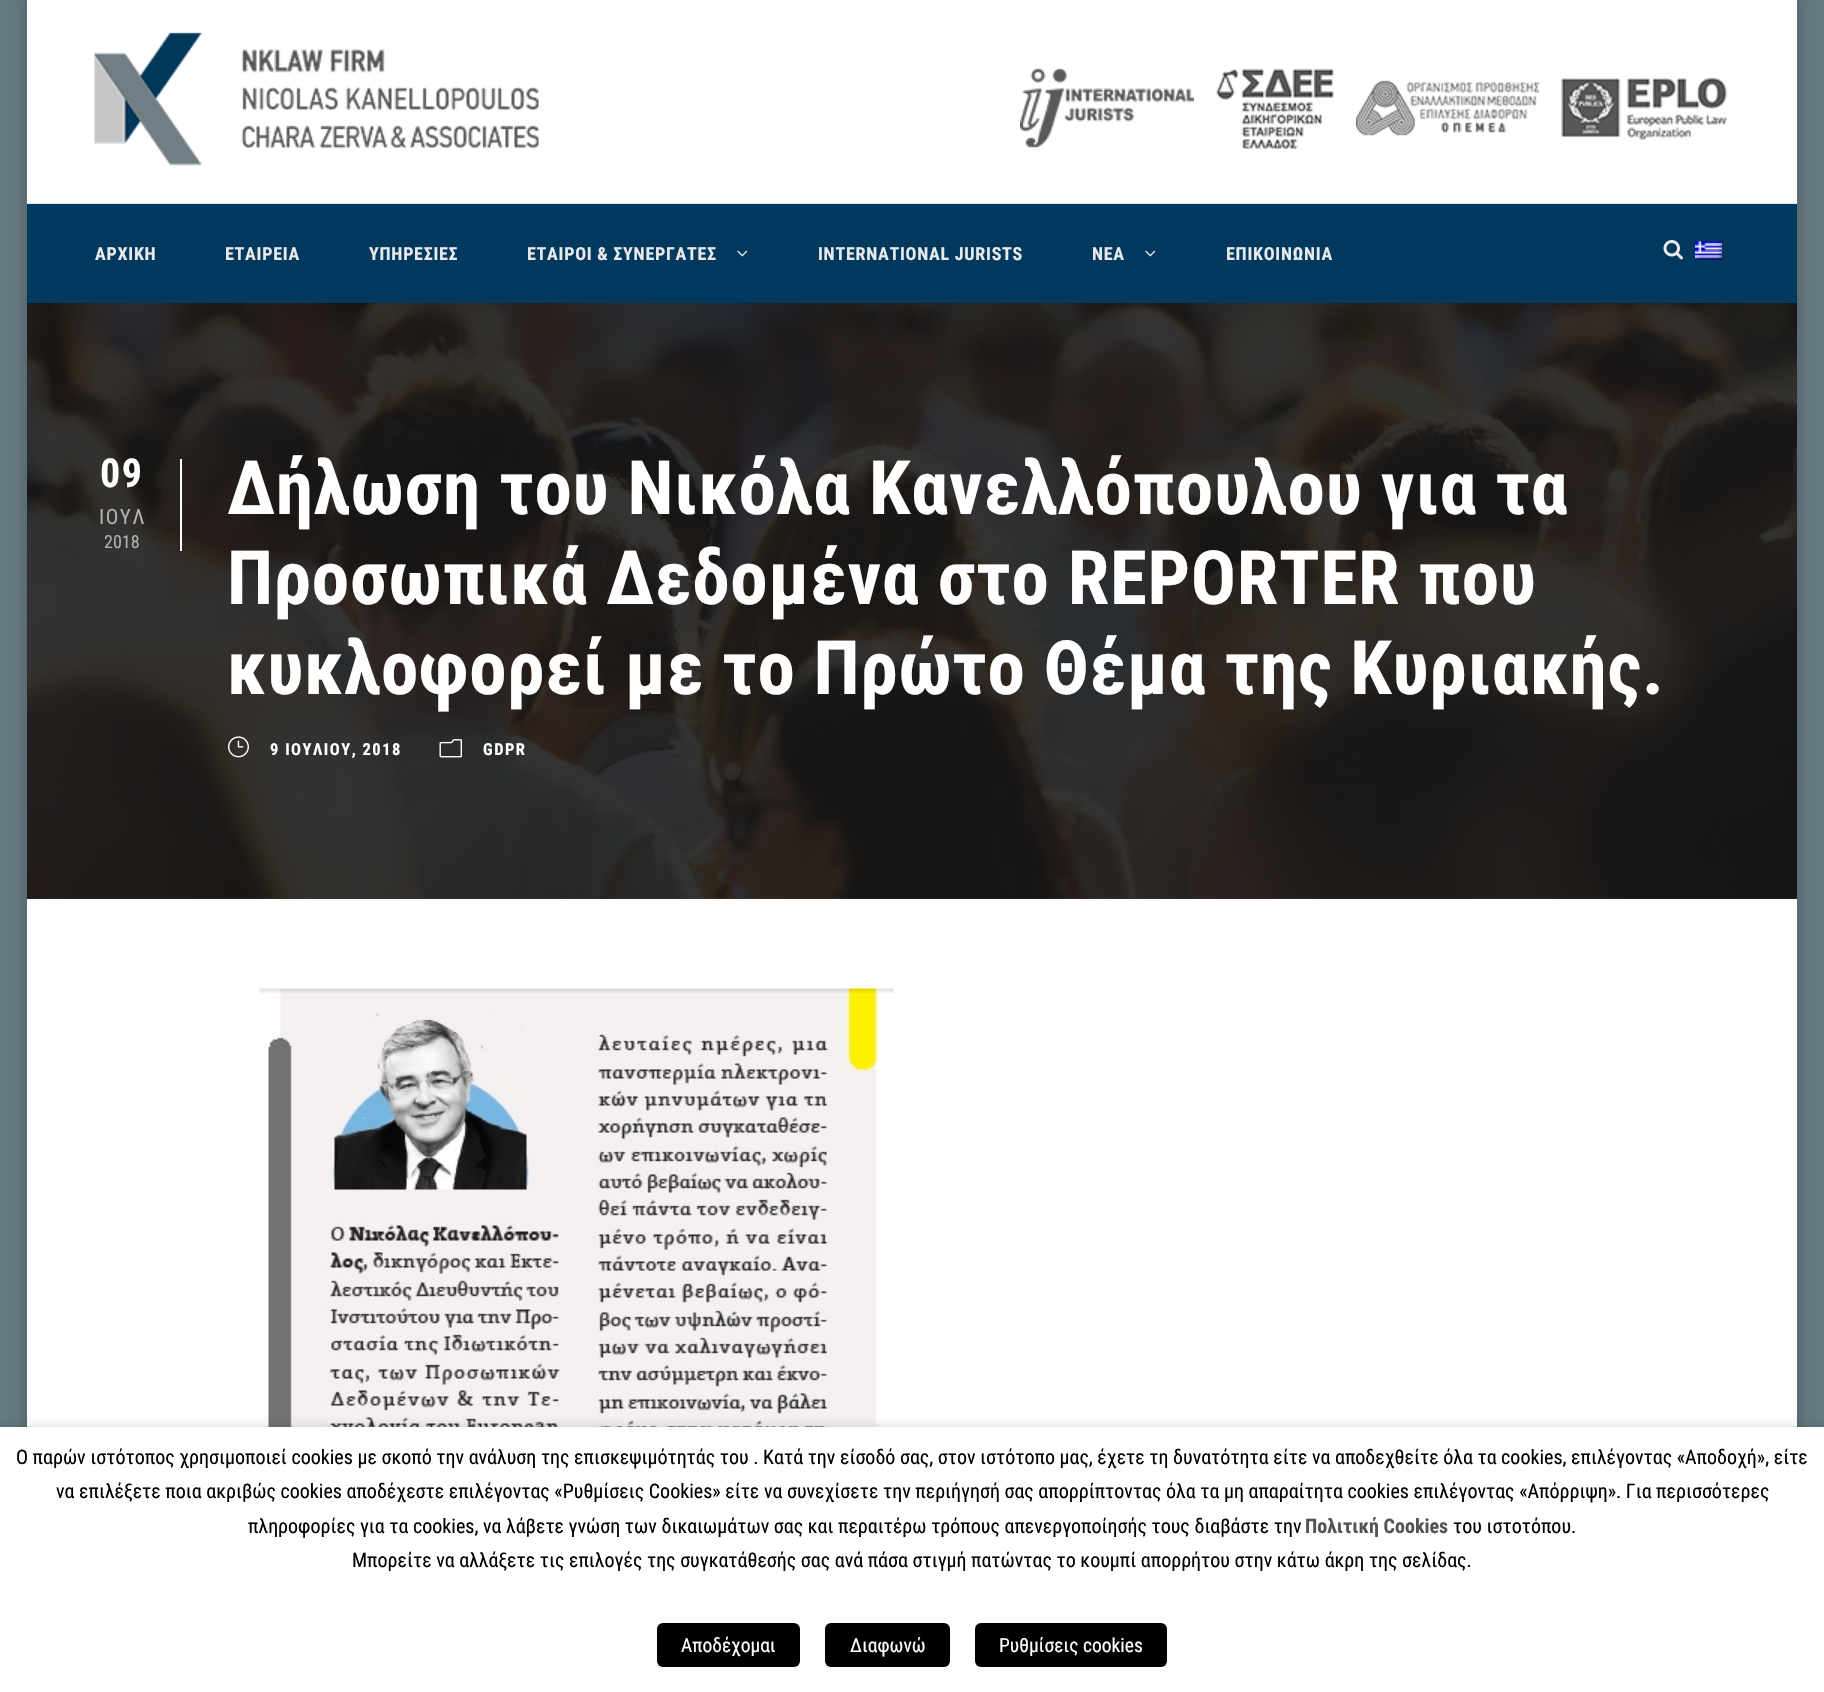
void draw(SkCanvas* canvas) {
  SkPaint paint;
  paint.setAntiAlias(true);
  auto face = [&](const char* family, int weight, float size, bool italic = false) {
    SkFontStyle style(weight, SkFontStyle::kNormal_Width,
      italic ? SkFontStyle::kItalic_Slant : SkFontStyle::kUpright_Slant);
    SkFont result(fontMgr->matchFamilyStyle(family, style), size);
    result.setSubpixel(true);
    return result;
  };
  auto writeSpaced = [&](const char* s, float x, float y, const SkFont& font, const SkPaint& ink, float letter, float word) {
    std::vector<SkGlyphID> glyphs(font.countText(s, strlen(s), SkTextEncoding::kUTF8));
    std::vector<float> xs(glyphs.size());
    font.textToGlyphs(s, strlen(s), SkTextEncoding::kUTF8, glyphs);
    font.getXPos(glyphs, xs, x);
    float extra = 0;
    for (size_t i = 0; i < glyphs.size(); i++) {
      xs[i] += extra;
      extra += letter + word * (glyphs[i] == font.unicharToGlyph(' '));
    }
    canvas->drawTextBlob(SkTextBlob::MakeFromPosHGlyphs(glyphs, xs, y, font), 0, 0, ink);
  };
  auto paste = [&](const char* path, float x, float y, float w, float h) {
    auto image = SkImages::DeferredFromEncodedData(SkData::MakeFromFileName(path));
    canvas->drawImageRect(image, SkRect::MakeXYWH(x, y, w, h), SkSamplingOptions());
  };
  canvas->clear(0xff657982);
  paint.setColor(0x40000000);
  paint.setMaskFilter(SkMaskFilter::MakeBlur(kNormal_SkBlurStyle, 7));
  canvas->drawRect(SkRect::MakeXYWH(27, -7, 1770, 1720), paint);
  paint.setMaskFilter(nullptr);
  paint.setColor(0xffffffff);
  canvas->drawRect(SkRect::MakeXYWH(27, 0, 1770, 1427), paint);
  paint.setColor(0xff333333);
  canvas->drawRect(SkRect::MakeXYWH(27, 898, 1770, 1), paint);
  paste("img/1.png", 94, 32, 445, 134);
  paste("img/2.png", 1020, 68, 174, 80);
  paste("img/3.png", 1216, 68, 118, 81);
  paste("img/4.png", 1356, 80, 183, 56);
  paste("img/5.png", 1561, 77, 166, 63);
  paint.setColor(0xffe6e6e6);
  canvas->drawRect(SkRect::MakeXYWH(27, 203, 1770, 1), paint);
  paint.setColor(0xff01385e);
  canvas->drawRect(SkRect::MakeXYWH(27, 204, 1770, 99), paint);
  paste("img/6.png", 737, 250, 11, 7);
  paste("img/6.png", 1145, 250, 11, 7);
  paste("img/7.png", 1663, 240, 20, 20);
  paste("img/8.png", 1695, 241, 27, 19);
  paste("img/9.png", 27, 303, 1770, 596);
  paint.setColor(0xffffffff);
  canvas->drawRect(SkRect::MakeXYWH(180, 459, 2, 92), paint);
  paste("img/10.png", 228, 736, 21, 22);
  paste("img/11.png", 439, 739, 23, 19);
  paste("img/12.png", 259, 988, 635, 439);
  paint.setColor(0x80000000);
  paint.setMaskFilter(SkMaskFilter::MakeBlur(kNormal_SkBlurStyle, 7.5f));
  canvas->drawRect(SkRect::MakeXYWH(0, 1434, 1824, 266), paint);
  paint.setMaskFilter(nullptr);
  paint.setColor(0xffffffff);
  canvas->drawRect(SkRect::MakeXYWH(0, 1427, 1824, 265), paint);
  paint.setColor(0xff000000);
  canvas->drawRoundRect(SkRect::MakeXYWH(657, 1623, 143, 44), 6, 6, paint);
  canvas->drawRoundRect(SkRect::MakeXYWH(825, 1623, 125, 44), 6, 6, paint);
  canvas->drawRoundRect(SkRect::MakeXYWH(975, 1623, 192, 44), 6, 6, paint);
  auto f0 = face("Roboto Condensed", 700, 18);
  paint.setColor(0xffe9e9e9);
  {
    const struct { const char* s; float x, y; } items[] = {
      {"ΑΡΧΙΚΗ", 95, 260},
      {"ΕΤΑΙΡΕΙΑ", 225, 260},
      {"ΥΠΗΡΕΣΙΕΣ", 369, 260},
      {"ΕΤΑΙΡΟΙ & ΣΥΝΕΡΓΑΤΕΣ", 527, 260},
      {"INTERNATIONAL JURISTS", 818, 260},
      {"ΝΕΑ", 1092, 260},
      {"ΕΠΙΚΟΙΝΩΝΙΑ", 1226, 260},
    };
    for (auto [s, x, y] : items) {
      writeSpaced(s, x, y, f0, paint, 0.75f, 0);
    }
  }
  auto f1 = face("Roboto Condensed", 700, 40);
  paint.setColor(0xffffffff);
  writeSpaced("09", 100, 487, f1, paint, 1.5f, 0);
  auto f2 = face("Roboto Condensed", 400, 21);
  paint.setColor(0xffb1b1b1);
  writeSpaced("ΙΟΥΛ", 99, 524, f2, paint, 1.5f, 0);
  auto f3 = face("Roboto Condensed", 400, 18);
  canvas->drawString("2018", 104, 548, f3, paint);
  auto f4 = face("Roboto Condensed", 700, 75);
  paint.setColor(0xffffffff);
  {
    const struct { const char* s; float x, y; } items[] = {
      {"Δήλωση του Νικόλα Κανελλόπουλου για τα", 227, 514},
      {"Προσωπικά Δεδομένα στο REPORTER που", 227, 604},
      {"κυκλοφορεί με το Πρώτο Θέμα της Κυριακής.", 227, 694},
    };
    for (auto [s, x, y] : items) {
      writeSpaced(s, x, y, f4, paint, 0.75f, 0);
    }
  }
  auto f5 = face("Roboto Condensed", 700, 16.5f);
  writeSpaced("9 ΙΟΥΛΙΟΥ, 2018", 270, 755, f5, paint, 1.5f, 0);
  writeSpaced("GDPR", 483, 755, f5, paint, 1.5f, 0);
  auto f6 = face("Roboto Condensed", 400, 20);
  paint.setColor(0xff000000);
  {
    const struct { const char* s; float x, y; } items[] = {
      {"Ο παρών ιστότοπος χρησιμοποιεί cookies με σκοπό την ανάλυση της επισκεψιμότητάς του . Κατά την είσοδό σας, στον", 16, 1464},
      {"ιστότοπο μας, έχετε τη δυνατότητα είτε να αποδεχθείτε όλα τα cookies, επιλέγοντας «Αποδοχή», είτε", 980, 1464},
      {"να επιλέξετε ποια ακριβώς cookies αποδέχεστε επιλέγοντας «Ρυθμίσεις Cookies» είτε να συνεχίσετε την περιήγησή σας απορρίπτοντας όλα τα μη απαραίτητα cookies επιλέγοντας «Απόρριψη». Για περισσότερες", 56, 1498},
      {"πληροφορίες για τα cookies, να λάβετε γνώση των δικαιωμάτων σας και περαιτέρω τρόπους απενεργοποίησής τους διαβάστε την", 248, 1533},
    };
    for (auto [s, x, y] : items) {
      canvas->drawString(s, x, y, f6, paint);
    }
  }
  auto f7 = face("Roboto Condensed", 700, 20);
  paint.setColor(0xff545454);
  canvas->drawString("Πολιτική Cookies", 1305, 1533, f7, paint);
  paint.setColor(0xff000000);
  canvas->drawString("του ιστοτόπου.", 1453, 1533, f6, paint);
  canvas->drawString("Μπορείτε να αλλάξετε τις επιλογές της συγκατάθεσής σας ανά πάσα στιγμή πατώντας το κουμπί απορρήτου στην κάτω άκρη της σελίδας.", 352, 1567, f6, paint);
  auto f8 = face("Roboto Condensed", 400, 19.5f);
  paint.setColor(0xffffffff);
  {
    const struct { const char* s; float x, y; } items[] = {
      {"Αποδέχομαι", 681, 1652},
      {"Διαφωνώ", 850, 1652},
      {"Ρυθμίσεις cookies", 999, 1652},
    };
    for (auto [s, x, y] : items) {
      canvas->drawString(s, x, y, f8, paint);
    }
  }
}
